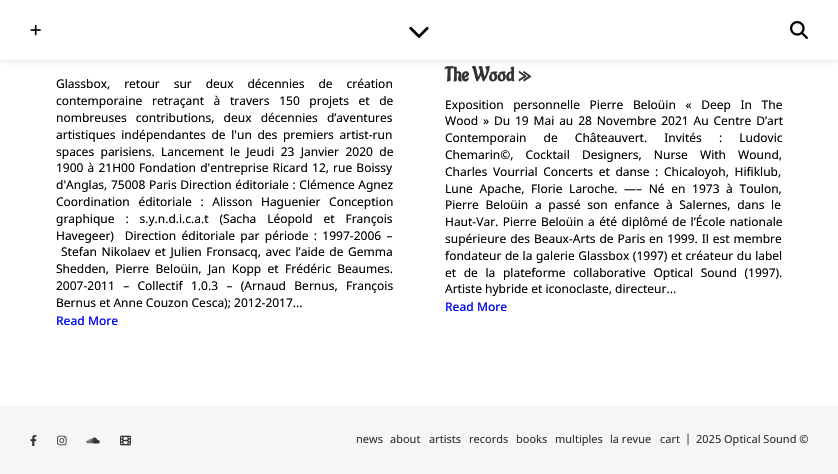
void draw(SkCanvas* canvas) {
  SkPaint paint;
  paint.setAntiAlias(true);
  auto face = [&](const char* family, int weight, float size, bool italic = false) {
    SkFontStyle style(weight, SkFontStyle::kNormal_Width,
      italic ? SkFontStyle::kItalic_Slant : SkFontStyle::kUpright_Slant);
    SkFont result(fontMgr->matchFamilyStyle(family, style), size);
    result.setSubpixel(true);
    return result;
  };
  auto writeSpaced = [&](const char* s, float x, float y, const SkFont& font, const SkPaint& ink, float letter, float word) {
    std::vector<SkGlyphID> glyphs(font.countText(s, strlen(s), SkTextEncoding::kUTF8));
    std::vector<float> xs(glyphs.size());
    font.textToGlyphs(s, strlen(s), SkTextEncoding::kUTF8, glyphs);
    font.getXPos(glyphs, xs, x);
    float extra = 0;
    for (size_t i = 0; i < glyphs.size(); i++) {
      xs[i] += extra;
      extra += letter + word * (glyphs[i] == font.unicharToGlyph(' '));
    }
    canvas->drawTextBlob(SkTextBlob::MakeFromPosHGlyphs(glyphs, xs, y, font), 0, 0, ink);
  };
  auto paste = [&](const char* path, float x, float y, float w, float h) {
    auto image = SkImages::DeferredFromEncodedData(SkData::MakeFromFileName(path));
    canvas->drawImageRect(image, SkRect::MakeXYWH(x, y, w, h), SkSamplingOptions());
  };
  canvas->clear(0xffffffff);
  paint.setColor(0x1a000000);
  paint.setMaskFilter(SkMaskFilter::MakeBlur(kNormal_SkBlurStyle, 2.5f));
  canvas->drawRect(SkRect::MakeXYWH(0, 1, 838, 60), paint);
  paint.setMaskFilter(nullptr);
  paint.setColor(0xffffffff);
  canvas->drawRect(SkRect::MakeXYWH(0, 0, 838, 60), paint);
  paste("img/1.png", 30, 24, 11, 12);
  paste("img/2.png", 409, 26, 20, 12);
  paste("img/3.png", 790, 21, 18, 18);
  paint.setColor(0xfff6f6f6);
  canvas->drawRect(SkRect::MakeXYWH(0, 406, 838, 68), paint);
  paste("img/4.png", 30, 435, 7, 11);
  paste("img/5.png", 57, 435, 10, 11);
  paste("img/6.png", 86, 437, 14, 7);
  paste("img/7.png", 120, 435, 11, 11);
  auto f0 = face("Noto Sans", 400, 12);
  paint.setColor(0xff000000);
  writeSpaced("Glassbox, retour sur deux décennies de création", 56, 88, f0, paint, 0, 10.75f);
  writeSpaced("contemporaine retraçant à travers 150 projets et de", 56, 105, f0, paint, 0, 6.5f);
  writeSpaced("nombreuses contributions, deux décennies d’aventures", 56, 122, f0, paint, 0, 6);
  writeSpaced("artistiques indépendantes de l'un des premiers artist-run", 56, 139, f0, paint, 0, 2.5f);
  writeSpaced("spaces parisiens. Lancement le Jeudi 23 Janvier 2020 de", 56, 156, f0, paint, 0, 3.25f);
  writeSpaced("1900 à 21H00 Fondation d'entreprise Ricard 12, rue Boissy", 56, 172, f0, paint, 0, 1);
  writeSpaced("d'Anglas, 75008 Paris Direction éditoriale : Clémence Agnez", 56, 189, f0, paint, 0, 0.5f);
  writeSpaced("Coordination éditoriale : Alisson Haguenier Conception", 56, 206, f0, paint, 0, 5.5f);
  writeSpaced("graphique : s.y.n.d.i.c.a.t (Sacha Léopold et François", 56, 223, f0, paint, 0, 7.75f);
  writeSpaced("Havegeer)  Direction éditoriale par période : 1997-2006 –", 56, 240, f0, paint, 0, 2.25f);
  writeSpaced("Stefan Nikolaev et Julien Fronsacq, avec l’aide de Gemma", 61, 256, f0, paint, 0, 1.5f);
  writeSpaced("Shedden, Pierre Beloüin, Jan Kopp et Frédéric Beaumes.", 56, 273, f0, paint, 0, 3.25f);
  writeSpaced("2007-2011 – Collectif 1.0.3 – (Arnaud Bernus, François", 56, 290, f0, paint, 0, 5.25f);
  canvas->drawString("Bernus et Anne Couzon Cesca); 2012-2017...", 56, 307, f0, paint);
  auto f1 = face("Noto Sans", 500, 12);
  paint.setColor(0xff000bec);
  canvas->drawString("Read More", 56, 325, f1, paint);
  auto f2 = face("Aladin", 700, 20);
  paint.setColor(0xff333333);
  canvas->drawString("The Wood »", 445, 81, f2, paint);
  paint.setColor(0xff000000);
  writeSpaced("Exposition personnelle Pierre Beloüin « Deep In The", 445, 109, f0, paint, 0, 6.5f);
  writeSpaced("Wood » Du 19 Mai au 28 Novembre 2021 Au Centre D’art", 445, 125, f0, paint, 0, 1.75f);
  writeSpaced("Contemporain de Châteauvert. Invités : Ludovic", 445, 142, f0, paint, 0, 14);
  writeSpaced("Chemarin©, Cocktail Designers, Nurse With Wound,", 445, 159, f0, paint, 0, 9);
  writeSpaced("Charles Vourrial Concerts et danse : Chicaloyoh, Hifiklub,", 445, 176, f0, paint, 0, 2.5f);
  writeSpaced("Lune Apache, Florie Laroche. —– Né en 1973 à Toulon,", 445, 193, f0, paint, 0, 3.5f);
  writeSpaced("Pierre Beloüin a passé son enfance à Salernes, dans le", 445, 209, f0, paint, 0, 3.5f);
  writeSpaced("Haut-Var. Pierre Beloüin a été diplômé de l’École nationale", 445, 226, f0, paint, 0, 1.25f);
  writeSpaced("supérieure des Beaux-Arts de Paris en 1999. Il est membre", 445, 243, f0, paint, 0, 0.75f);
  writeSpaced("fondateur de la galerie Glassbox (1997) et créateur du label", 445, 260, f0, paint, 0, 0.4f);
  writeSpaced("et de la plateforme collaborative Optical Sound (1997).", 445, 277, f0, paint, 0, 4.5f);
  canvas->drawString("Artiste hybride et iconoclaste, directeur...", 445, 293, f0, paint);
  paint.setColor(0xff000bec);
  canvas->drawString("Read More", 445, 311, f1, paint);
  auto f3 = face("Noto Sans", 400, 11);
  paint.setColor(0xff333333);
  {
    const struct { const char* s; float x, y; } items[] = {
      {"news", 356, 443},
      {"about", 390, 443},
      {"artists", 429, 443},
      {"records", 469, 443},
      {"books", 516, 443},
      {"multiples", 555, 443},
      {"la revue", 610, 443},
      {"cart", 660, 443},
      {"|", 685, 442},
      {"2025 Optical Sound ©", 696, 443},
    };
    for (auto [s, x, y] : items) {
      canvas->drawString(s, x, y, f3, paint);
    }
  }
}
